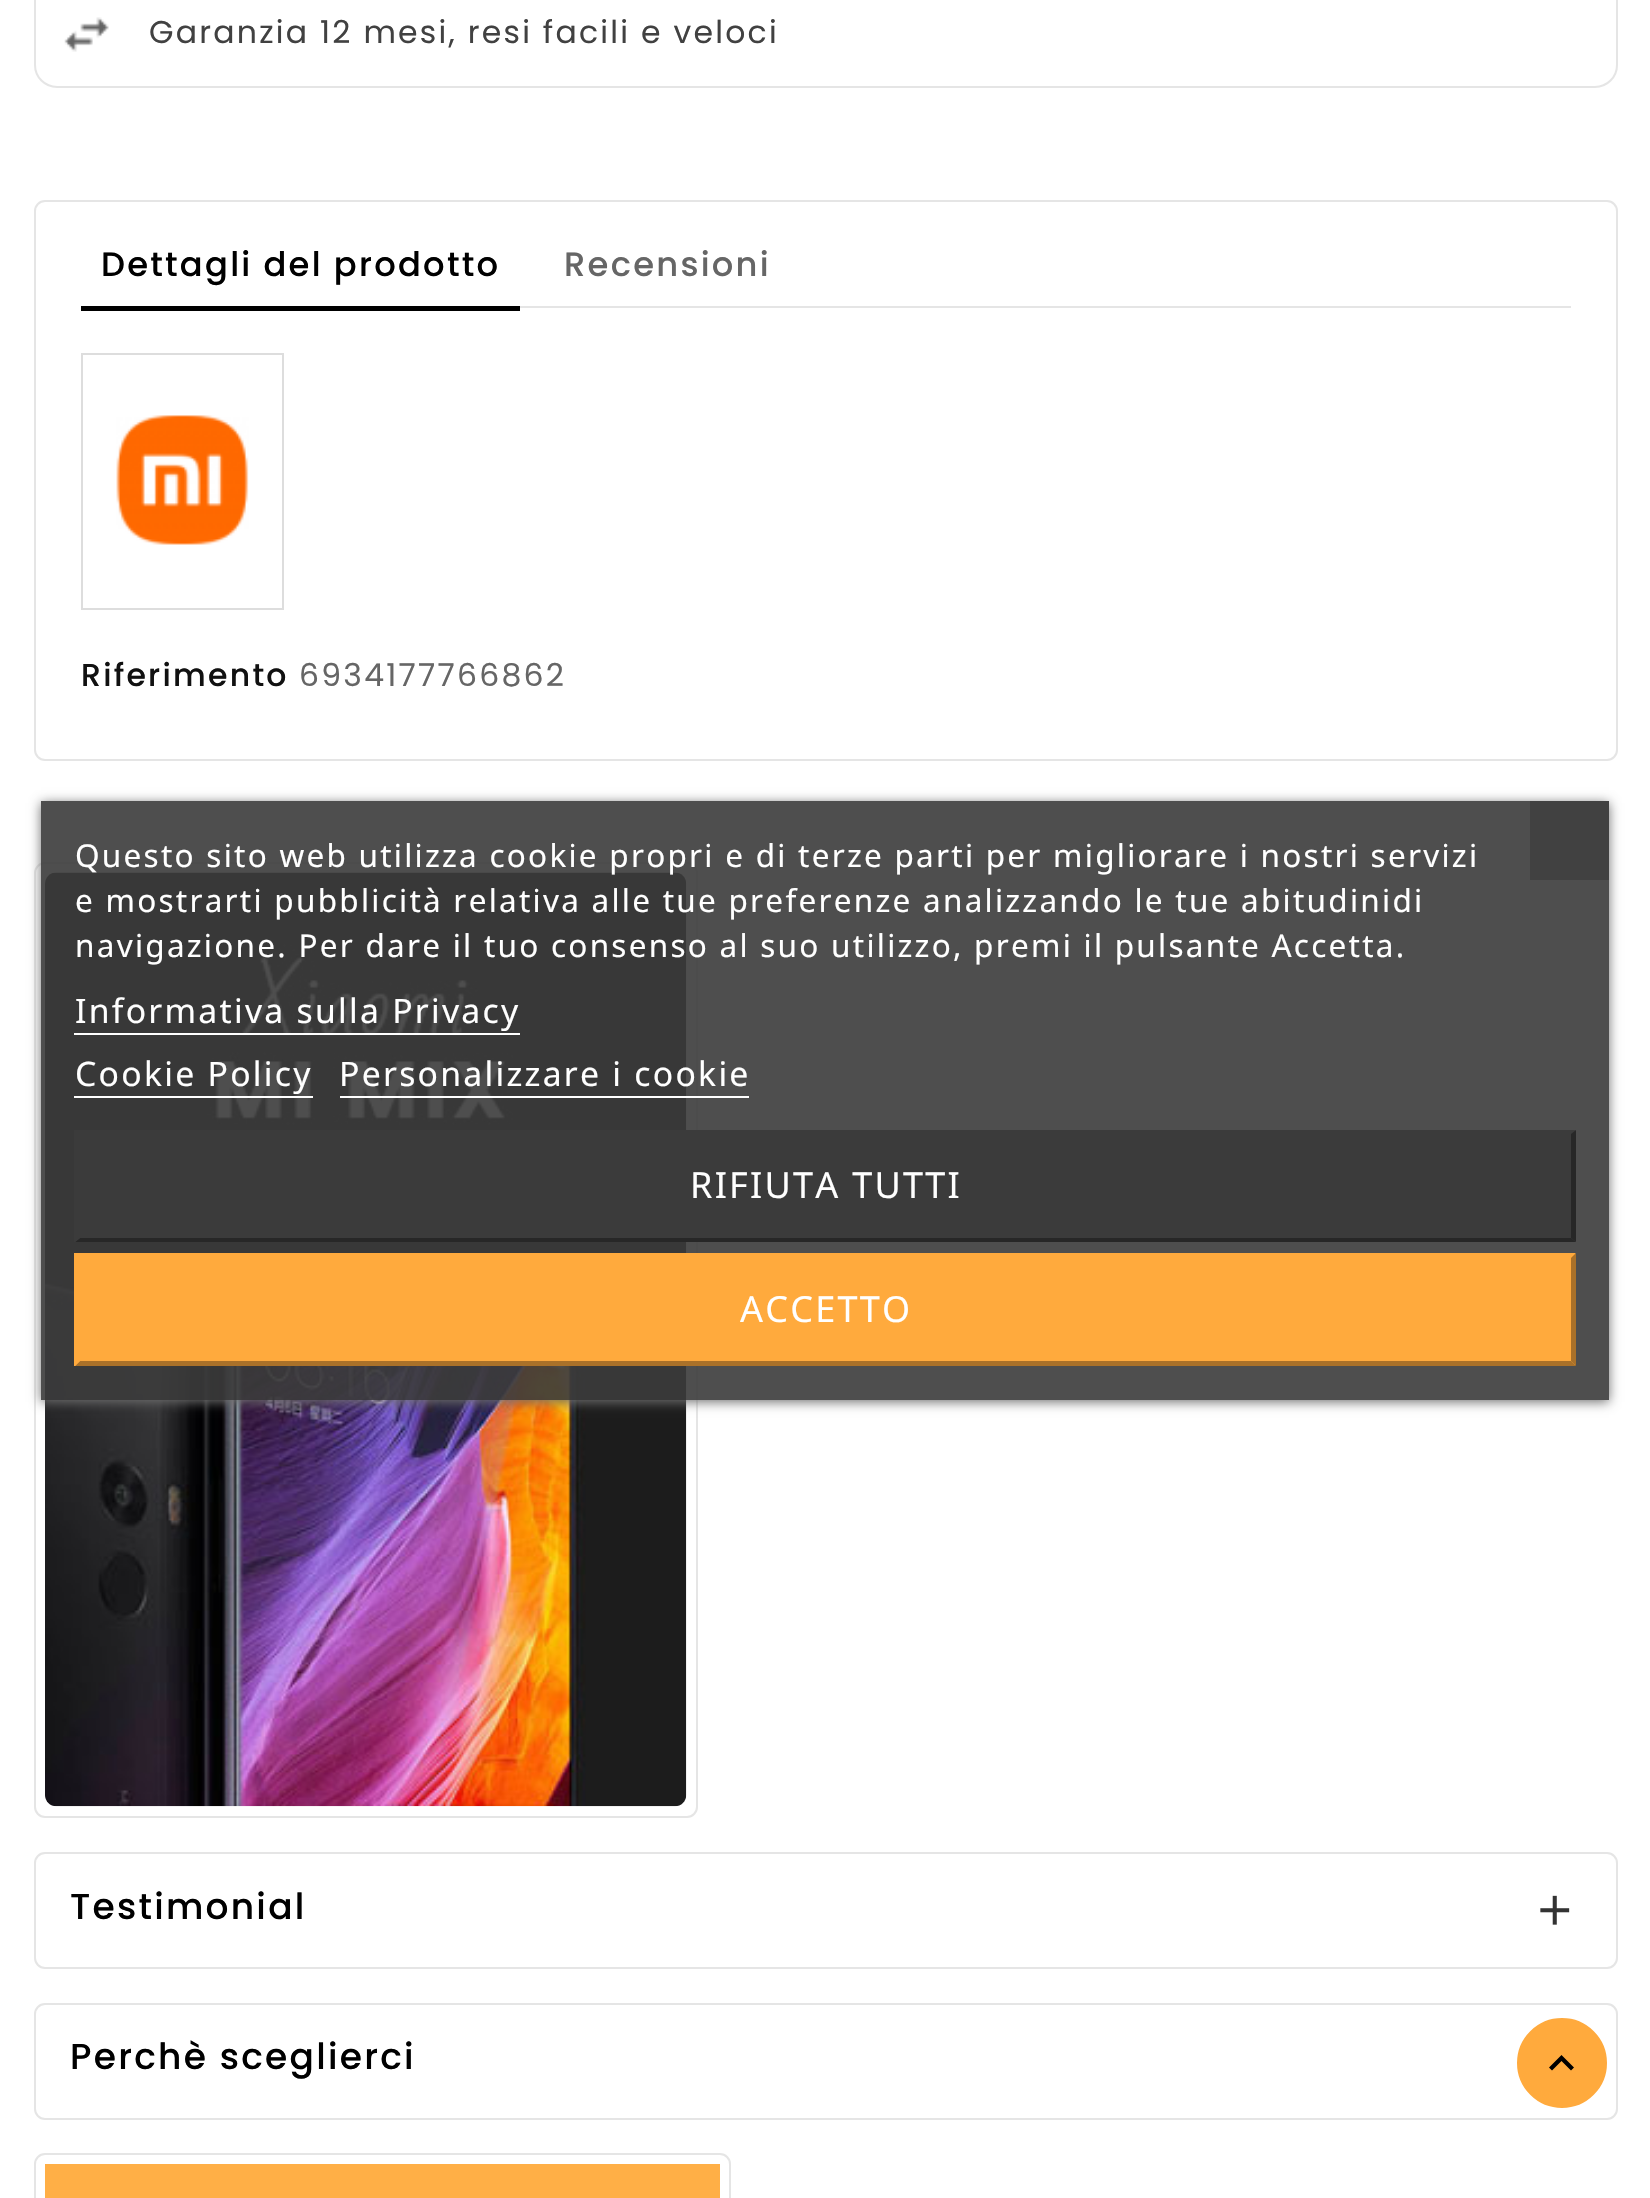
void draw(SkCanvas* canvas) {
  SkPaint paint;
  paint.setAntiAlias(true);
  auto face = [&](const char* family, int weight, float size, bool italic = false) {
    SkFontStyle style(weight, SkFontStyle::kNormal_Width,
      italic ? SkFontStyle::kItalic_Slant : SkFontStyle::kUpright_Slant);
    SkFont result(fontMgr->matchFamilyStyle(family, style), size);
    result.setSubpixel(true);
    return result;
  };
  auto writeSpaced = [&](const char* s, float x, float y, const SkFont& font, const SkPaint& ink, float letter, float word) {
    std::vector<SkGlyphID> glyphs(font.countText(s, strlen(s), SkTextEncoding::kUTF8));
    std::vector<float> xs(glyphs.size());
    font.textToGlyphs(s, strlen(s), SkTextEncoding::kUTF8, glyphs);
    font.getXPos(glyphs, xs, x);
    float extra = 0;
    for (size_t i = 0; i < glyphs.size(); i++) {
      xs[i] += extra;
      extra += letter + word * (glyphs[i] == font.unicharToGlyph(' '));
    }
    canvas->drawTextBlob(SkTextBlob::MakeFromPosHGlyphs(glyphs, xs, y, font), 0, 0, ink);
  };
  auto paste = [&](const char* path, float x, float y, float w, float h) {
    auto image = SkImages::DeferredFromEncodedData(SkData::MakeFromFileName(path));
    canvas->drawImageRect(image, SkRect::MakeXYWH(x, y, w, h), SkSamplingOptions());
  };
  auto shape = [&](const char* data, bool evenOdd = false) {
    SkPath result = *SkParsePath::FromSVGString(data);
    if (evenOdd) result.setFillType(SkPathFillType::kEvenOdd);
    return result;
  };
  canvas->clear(0xffffffff);
  paint.setStroke(true);
  paint.setStrokeWidth(2);
  paint.setColor(0xffe5e5e5);
  canvas->drawRoundRect(SkRect::MakeXYWH(35, -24, 1582, 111), 22, 22, paint);
  paste("img/1.png", 64, 17, 45, 35);
  canvas->drawRoundRect(SkRect::MakeXYWH(35, 201, 1582, 559), 10, 10, paint);
  paint.setStroke(false);
  canvas->drawRect(SkRect::MakeXYWH(520, 306, 1051, 2), paint);
  paint.setColor(0xff000000);
  canvas->drawRect(SkRect::MakeXYWH(81, 306, 439, 5), paint);
  paint.setStroke(true);
  paint.setColor(0xffdddddd);
  canvas->drawRect(SkRect::MakeXYWH(82, 354, 201, 255), paint);
  paste("img/2.png", 116, 415, 133, 130);
  paint.setColor(0xffe5e5e5);
  canvas->drawRoundRect(SkRect::MakeXYWH(35, 863, 662, 954), 10, 10, paint);
  paste("img/3.png", 45, 872, 642, 935);
  canvas->drawRoundRect(SkRect::MakeXYWH(35, 1853, 1582, 115), 10, 10, paint);
  paste("img/4.png", 1540, 1895, 30, 30);
  canvas->drawRoundRect(SkRect::MakeXYWH(35, 2004, 1582, 115), 10, 10, paint);
  canvas->drawRoundRect(SkRect::MakeXYWH(35, 2154, 695, 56), 10, 10, paint);
  paint.setStroke(false);
  paint.setColor(0xffffaf46);
  canvas->drawRect(SkRect::MakeXYWH(45, 2164, 675, 34), paint);
  canvas->save();
  canvas->clipPath(shape("M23 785H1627V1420H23ZM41 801H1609V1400H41Z", true), true);
  paint.setColor(0xff707070);
  paint.setMaskFilter(SkMaskFilter::MakeBlur(kNormal_SkBlurStyle, 5.5f));
  canvas->drawRect(SkRect::MakeXYWH(41, 803, 1568, 599), paint);
  paint.setMaskFilter(nullptr);
  canvas->restore();
  {
    const struct { float x, y, w, h; SkColor color; } items[] = {
      {41, 801, 1568, 599, 0xe63b3b3b},
      {74, 1033, 446, 2, 0xffffffff},
      {74, 1096, 239, 2, 0xffffffff},
      {340, 1096, 409, 2, 0xffffffff},
      {74, 1130, 1501, 112, 0xff3b3b3b},
    };
    for (auto [x, y, w, h, color] : items) {
      paint.setColor(color);
      canvas->drawRect(SkRect::MakeXYWH(x, y, w, h), paint);
    }
  }
  canvas->drawPath(shape("M75 1130H1576L1571 1134H80Z"), paint);
  paint.setColor(0xff272727);
  canvas->drawPath(shape("M1576 1130V1242L1571 1238V1134Z"), paint);
  canvas->drawPath(shape("M1576 1242H75L80 1238H1571Z"), paint);
  paint.setColor(0xff3b3b3b);
  canvas->drawPath(shape("M75 1242V1130L80 1134V1238Z"), paint);
  paint.setColor(0xffffaa3d);
  canvas->drawRect(SkRect::MakeXYWH(74, 1253, 1501, 113), paint);
  canvas->drawPath(shape("M75 1253H1576L1571 1258H80Z"), paint);
  paint.setColor(0xffaa7129);
  canvas->drawPath(shape("M1576 1253V1366L1571 1361V1258Z"), paint);
  canvas->drawPath(shape("M1576 1366H75L80 1361H1571Z"), paint);
  paint.setColor(0xffffaa3d);
  canvas->drawPath(shape("M75 1366V1253L80 1258V1361Z"), paint);
  paint.setColor(0xff414141);
  canvas->drawRect(SkRect::MakeXYWH(1530, 801, 79, 79), paint);
  paint.setColor(0xffffaa3d);
  canvas->drawCircle(1562, 2063, 42.5f, paint);
  paint.setStroke(true);
  paint.setStrokeWidth(5);
  canvas->drawCircle(1562, 2063, 42.5f, paint);
  paint.setStroke(false);
  paint.setColor(0xff000000);
  canvas->drawPath(shape("M1552 2070.5L1549 2067.5L1561.5 2055L1574 2067.5L1571 2070.5L1561.5 2061Z"), paint);
  auto f0 = face("Poppins", 400, 31.5f);
  paint.setColor(0xff414141);
  writeSpaced("Garanzia 12 mesi, resi facili e veloci", 149, 43, f0, paint, 2.25f, 0);
  auto f1 = face("Poppins", 500, 33.75f);
  paint.setColor(0xff000000);
  writeSpaced("Dettagli del prodotto", 101, 276, f1, paint, 2.25f, 0);
  paint.setColor(0xff666666);
  writeSpaced("Recensioni", 564, 276, f1, paint, 2.25f, 0);
  auto f2 = face("Poppins", 500, 31.5f);
  paint.setColor(0xff111111);
  writeSpaced("Riferimento", 81, 686, f2, paint, 2.25f, 0);
  paint.setColor(0xff666666);
  writeSpaced("6934177766862", 299, 686, f0, paint, 2.25f, 0);
  auto f3 = face("Poppins", 500, 36);
  paint.setColor(0xff000000);
  writeSpaced("Testimonial", 70, 1919, f3, paint, 2.25f, 0);
  writeSpaced("Perchè sceglierci", 70, 2069, f3, paint, 2.25f, 0);
  auto f4 = face("Noto Sans", 400, 31.5f);
  paint.setColor(0xffffffff);
  {
    const struct { const char* s; float x, y; } items[] = {
      {"Questo sito web utilizza cookie propri e di terze parti per migliorare i nostri servizi", 75, 867},
      {"e mostrarti pubblicità relativa alle tue preferenze analizzando le tue abitudinidi", 75, 912},
      {"navigazione. Per dare il tuo consenso al suo utilizzo, premi il pulsante Accetta.", 75, 957},
    };
    for (auto [s, x, y] : items) {
      writeSpaced(s, x, y, f4, paint, 2.25f, 0);
    }
  }
  auto f5 = face("Noto Sans", 400, 33.75f);
  {
    const struct { const char* s; float x, y; } items[] = {
      {"Informativa sulla Privacy", 75, 1023},
      {"Cookie Policy", 75, 1086},
      {"Personalizzare i cookie", 339, 1086},
    };
    for (auto [s, x, y] : items) {
      writeSpaced(s, x, y, f5, paint, 2.25f, 0);
    }
  }
  auto f6 = face("Noto Sans", 400, 36);
  writeSpaced("RIFIUTA TUTTI", 690, 1198, f6, paint, 2.25f, 0);
  writeSpaced("ACCETTO", 740, 1322, f6, paint, 2.25f, 0);
}
